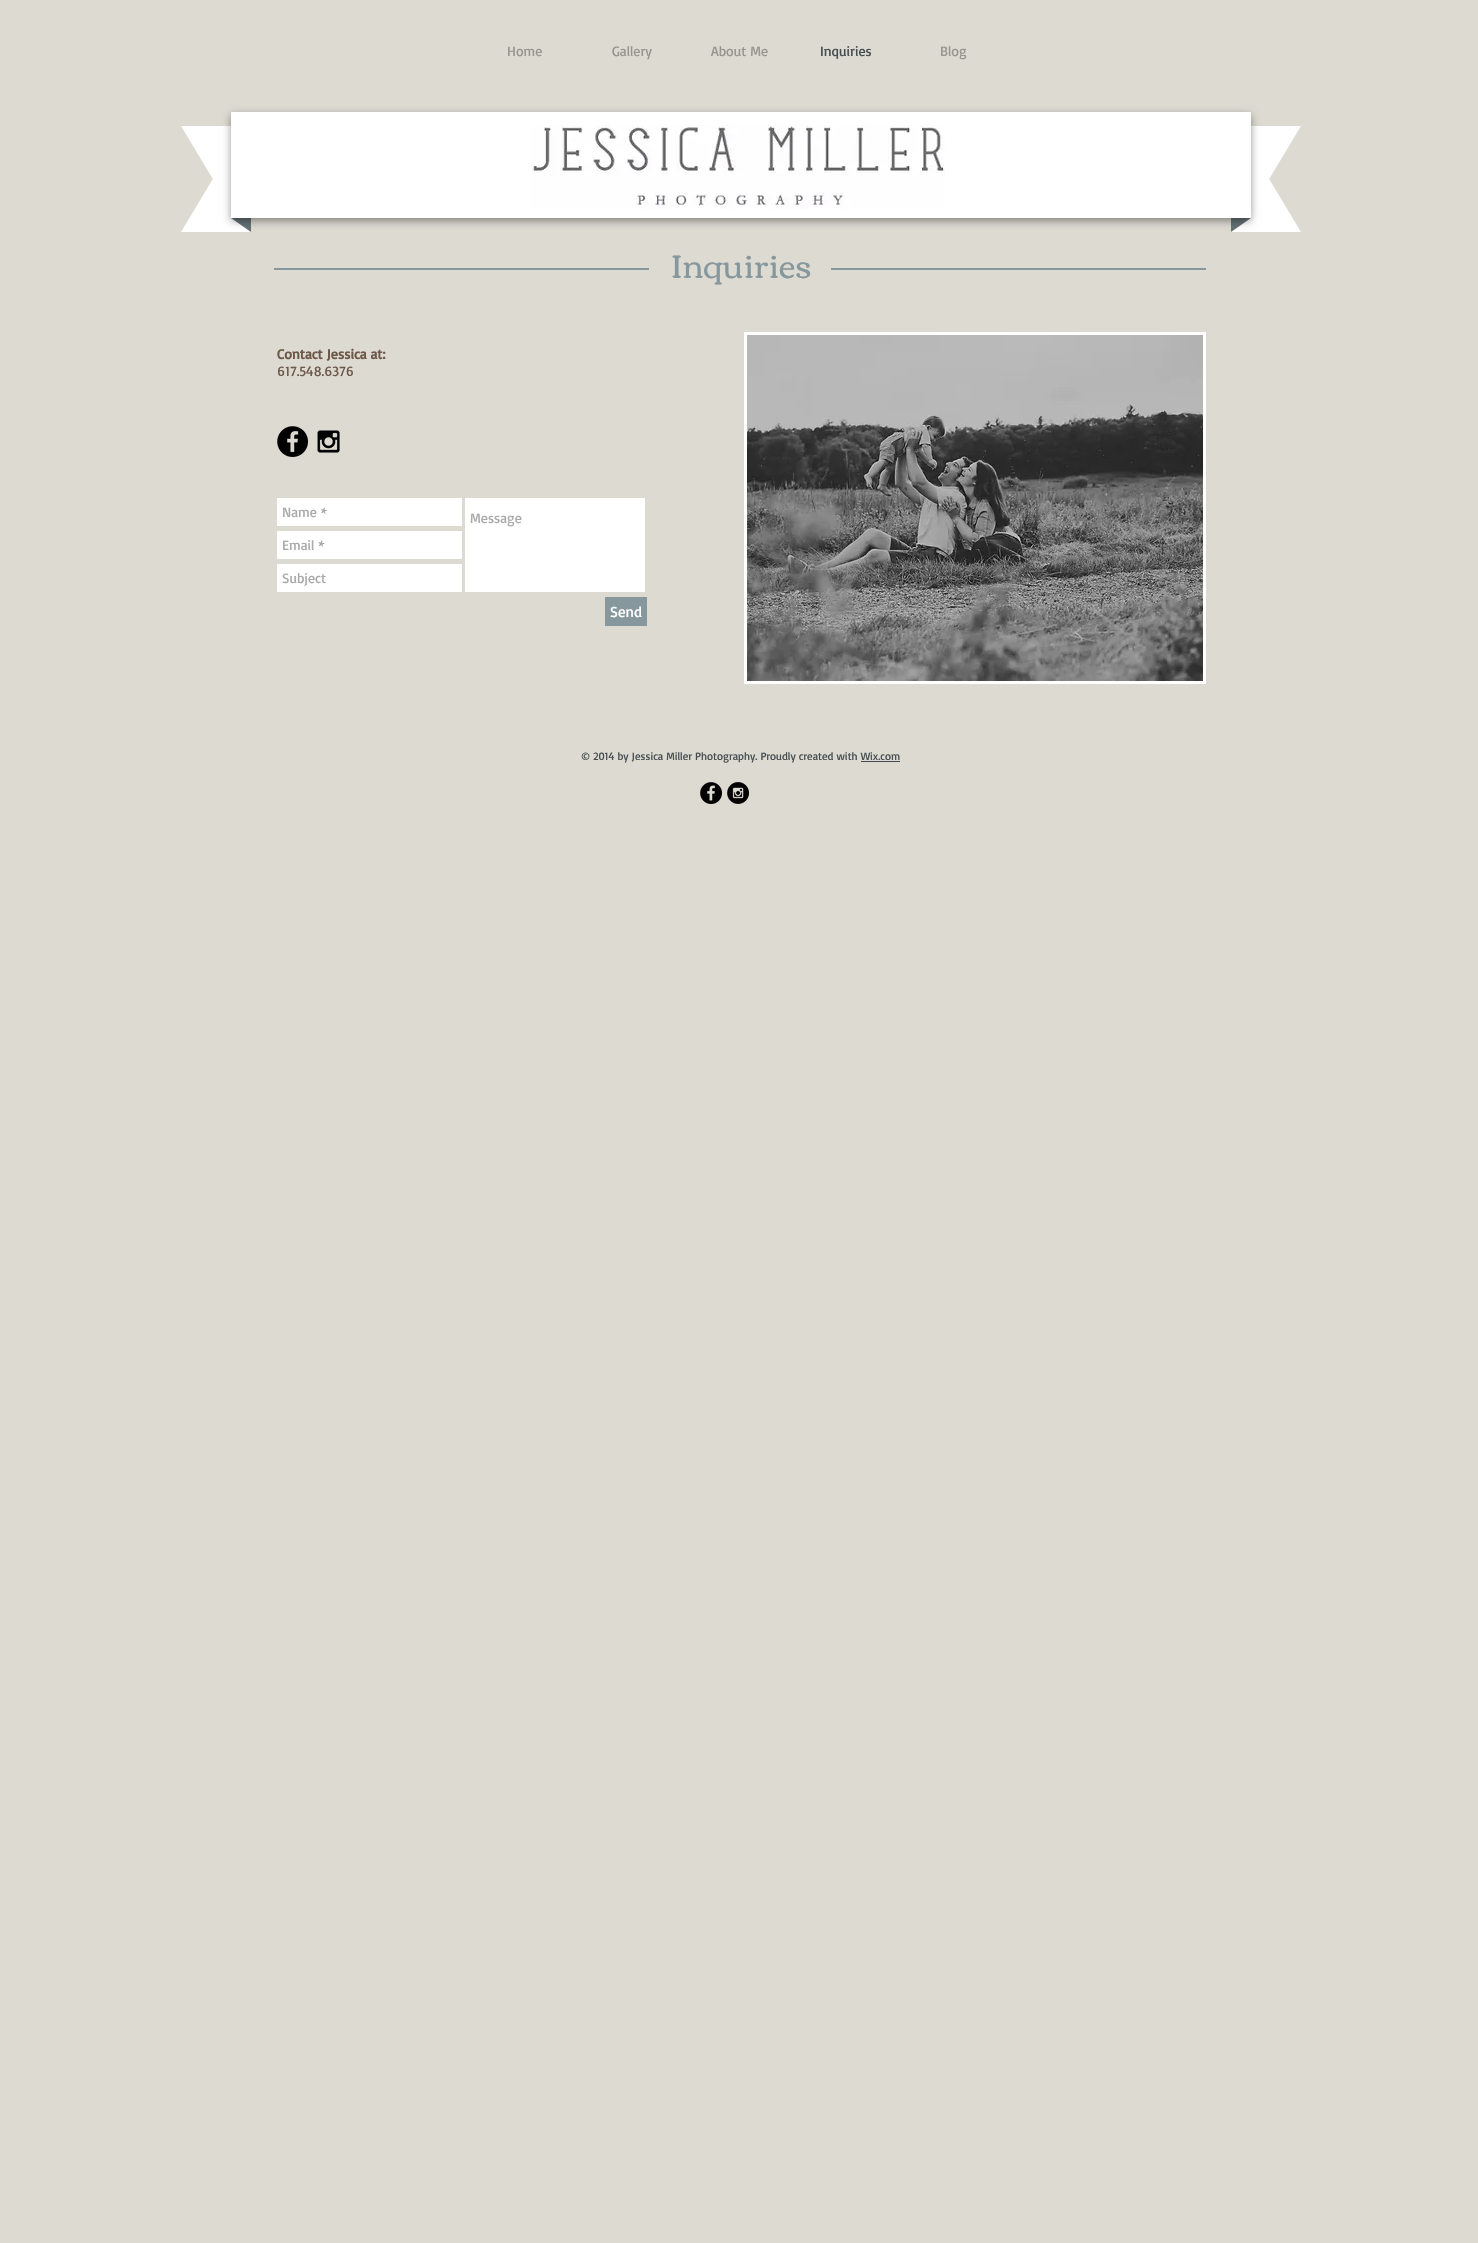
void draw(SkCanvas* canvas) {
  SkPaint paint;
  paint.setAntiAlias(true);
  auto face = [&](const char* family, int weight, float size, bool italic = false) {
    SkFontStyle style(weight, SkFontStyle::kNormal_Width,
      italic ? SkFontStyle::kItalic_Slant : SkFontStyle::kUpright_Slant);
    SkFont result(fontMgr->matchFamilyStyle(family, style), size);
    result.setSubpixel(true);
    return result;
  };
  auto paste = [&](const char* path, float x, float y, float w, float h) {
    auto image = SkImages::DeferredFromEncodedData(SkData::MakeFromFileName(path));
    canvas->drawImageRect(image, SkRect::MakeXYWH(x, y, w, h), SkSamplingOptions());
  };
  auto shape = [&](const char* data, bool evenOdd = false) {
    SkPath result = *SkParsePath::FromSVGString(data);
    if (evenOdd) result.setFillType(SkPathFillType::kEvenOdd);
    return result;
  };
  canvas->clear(0xffdddad2);
  paint.setColor(0xffffffff);
  canvas->drawPath(shape("M181 126H251V226H241Z"), paint);
  canvas->drawPath(shape("M1231 126H1301L1241 226H1231Z"), paint);
  canvas->save();
  canvas->clipRect(SkRect::MakeXYWH(181, 179, 1120, 53));
  canvas->drawPath(shape("M251 232H181L241 132H251Z"), paint);
  canvas->drawPath(shape("M1301 232H1231V132H1241Z"), paint);
  canvas->restore();
  paint.setColor(0xff647276);
  canvas->drawPath(shape("M251 218V232L231 218Z"), paint);
  canvas->drawPath(shape("M1231 232V218H1251Z"), paint);
  paint.setColor(0x66000000);
  paint.setMaskFilter(SkMaskFilter::MakeBlur(kNormal_SkBlurStyle, 4));
  canvas->drawRect(SkRect::MakeXYWH(231, 115, 1020, 106), paint);
  paint.setMaskFilter(nullptr);
  paint.setColor(0xffffffff);
  canvas->drawRect(SkRect::MakeXYWH(231, 112, 1020, 106), paint);
  paste("img/1.png", 532, 125, 413, 84);
  {
    const struct { float x, y, w, h; SkColor color; } items[] = {
      {274, 268, 375, 2, 0xff86989e},
      {831, 268, 375, 2, 0xff86989e},
      {744, 332, 462, 352, 0xffffffff},
    };
    for (auto [x, y, w, h, color] : items) {
      paint.setColor(color);
      canvas->drawRect(SkRect::MakeXYWH(x, y, w, h), paint);
    }
  }
  paste("img/2.png", 747, 335, 456, 346);
  paste("img/3.png", 277, 426, 31, 31);
  paste("img/4.png", 317, 430, 23, 23);
  {
    const struct { float x, y, w, h; SkColor color; } items[] = {
      {277, 498, 185, 28, 0xffffffff},
      {465, 498, 180, 94, 0xffffffff},
      {277, 531, 185, 28, 0xffffffff},
      {277, 564, 185, 28, 0xffffffff},
      {605, 597, 42, 29, 0xff86989e},
      {861, 761, 39, 1, 0xff434c4f},
    };
    for (auto [x, y, w, h, color] : items) {
      paint.setColor(color);
      canvas->drawRect(SkRect::MakeXYWH(x, y, w, h), paint);
    }
  }
  paste("img/5.png", 700, 782, 22, 22);
  paste("img/6.png", 727, 782, 22, 22);
  auto f0 = face("Basic", 400, 14);
  paint.setColor(0xff98958f);
  {
    const struct { const char* s; float x, y; } items[] = {
      {"Home", 507, 56},
      {"Gallery", 612, 56},
      {"About Me", 711, 56},
    };
    for (auto [s, x, y] : items) {
      canvas->drawString(s, x, y, f0, paint);
    }
  }
  paint.setColor(0xff434c4f);
  canvas->drawString("Inquiries", 820, 56, f0, paint);
  paint.setColor(0xff98958f);
  canvas->drawString("Blog", 940, 56, f0, paint);
  auto f1 = face("Corben", 400, 33);
  paint.setColor(0xff86989e);
  canvas->drawString("Inquiries", 671, 278, f1, paint);
  auto f2 = face("Basic", 700, 14);
  paint.setColor(0xff6e5849);
  canvas->drawString("Contact Jessica at:", 277, 359, f2, paint);
  canvas->drawString("617.548.6376", 277, 376, f0, paint);
  paint.setColor(0xffa9a9a9);
  {
    const struct { const char* s; float x, y; } items[] = {
      {"Name *", 282, 517},
      {"Message", 470, 523},
      {"Email *", 282, 550},
      {"Subject", 282, 583},
    };
    for (auto [s, x, y] : items) {
      canvas->drawString(s, x, y, f0, paint);
    }
  }
  auto f3 = face("Basic", 400, 15);
  paint.setColor(0xffffffff);
  canvas->drawString("Send", 610, 617, f3, paint);
  auto f4 = face("Basic", 400, 11);
  paint.setColor(0xff434c4f);
  canvas->drawString("© 2014 by Jessica Miller Photography. Proudly created with Wix.com", 581, 760, f4, paint);
}
